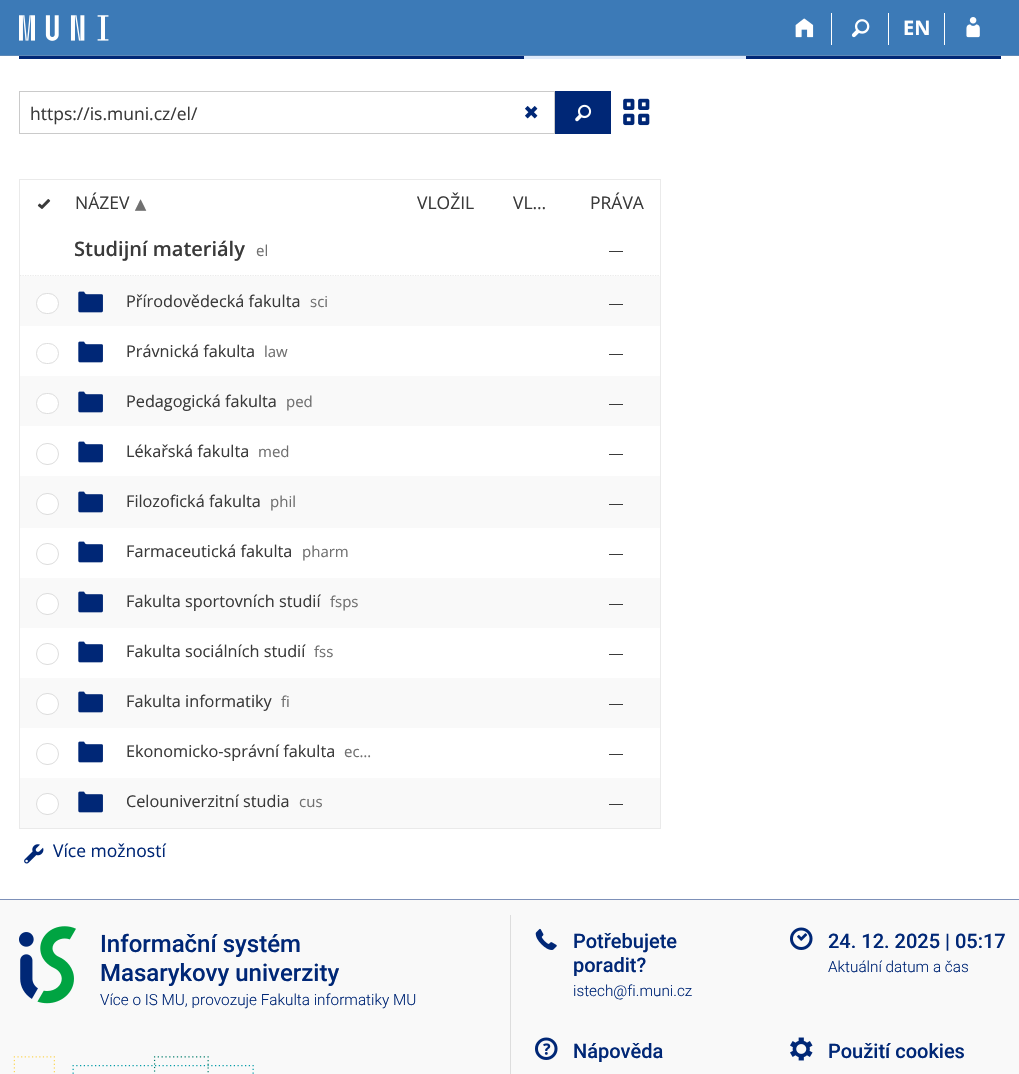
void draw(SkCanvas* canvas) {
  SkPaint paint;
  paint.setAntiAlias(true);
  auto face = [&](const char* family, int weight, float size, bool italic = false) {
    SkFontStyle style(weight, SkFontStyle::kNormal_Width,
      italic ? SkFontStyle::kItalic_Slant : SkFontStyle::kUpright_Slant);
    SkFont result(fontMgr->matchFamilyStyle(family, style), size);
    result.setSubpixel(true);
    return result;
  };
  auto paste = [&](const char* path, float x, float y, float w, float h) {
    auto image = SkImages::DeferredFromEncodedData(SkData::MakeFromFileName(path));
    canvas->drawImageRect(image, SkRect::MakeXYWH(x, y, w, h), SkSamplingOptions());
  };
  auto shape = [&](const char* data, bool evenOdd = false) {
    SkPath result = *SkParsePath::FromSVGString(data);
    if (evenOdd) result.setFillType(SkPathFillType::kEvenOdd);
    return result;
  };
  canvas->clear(0xffffffff);
  paint.setColor(0xff3c7ab7);
  canvas->drawRect(SkRect::MakeXYWH(0, 0, 1019, 55), paint);
  paint.setColor(0xff5c88b6);
  canvas->drawRect(SkRect::MakeXYWH(0, 55, 1019, 1), paint);
  paste("img/1.png", 19, 15, 90, 26);
  paint.setColor(0xffffffff);
  canvas->drawRect(SkRect::MakeXYWH(831, 13, 1, 32), paint);
  paste("img/2.png", 795, 18, 19, 20);
  canvas->drawRect(SkRect::MakeXYWH(888, 13, 1, 32), paint);
  paste("img/3.png", 851, 19, 19, 19);
  canvas->drawRect(SkRect::MakeXYWH(944, 13, 1, 32), paint);
  paste("img/4.png", 966, 17, 14, 21);
  paint.setColor(0xff002776);
  canvas->drawRect(SkRect::MakeXYWH(19, 56, 982, 3), paint);
  paint.setColor(0xffdeeafb);
  canvas->drawRect(SkRect::MakeXYWH(524, 56, 222, 3), paint);
  paint.setStroke(true);
  paint.setStrokeWidth(1);
  paint.setColor(0xffcacaca);
  canvas->drawRect(SkRect::MakeXYWH(19.5f, 91.5f, 535, 42), paint);
  paste("img/5.png", 525, 106, 13, 13);
  paint.setStroke(false);
  paint.setColor(0xff002776);
  canvas->drawRect(SkRect::MakeXYWH(555, 91, 56, 43), paint);
  paste("img/6.png", 575, 104, 17, 18);
  paste("img/7.png", 623, 98, 27, 28);
  paint.setStroke(true);
  paint.setColor(0xffeaeaea);
  canvas->drawRect(SkRect::MakeXYWH(19.5f, 179.5f, 641, 649), paint);
  paste("img/8.png", 37, 199, 14, 10);
  paint.setStrokeWidth(1.2f);
  paint.setPathEffect(SkDashPathEffect::Make({{1.25f, 1.25f}}, 0));
  canvas->drawPath(shape("M20 275.5H660"), paint);
  paint.setPathEffect(nullptr);
  paint.setStroke(false);
  paint.setColor(0xff3a3a3a);
  canvas->drawRect(SkRect::MakeXYWH(609, 251, 14, 1), paint);
  paint.setColor(0xfff9f9f9);
  canvas->drawRect(SkRect::MakeXYWH(20, 276, 553, 50), paint);
  paint.setColor(0xffffffff);
  canvas->drawRoundRect(SkRect::MakeXYWH(36.5f, 293.5f, 22, 20), 10, 10, paint);
  paint.setStroke(true);
  paint.setStrokeWidth(1);
  paint.setColor(0xffdddddd);
  canvas->drawRoundRect(SkRect::MakeXYWH(36.5f, 293.5f, 22, 20), 10, 10, paint);
  paint.setStroke(false);
  paint.setColor(0xfff9f9f9);
  canvas->drawRect(SkRect::MakeXYWH(573, 276, 87, 50), paint);
  paint.setColor(0xff3a3a3a);
  canvas->drawRect(SkRect::MakeXYWH(609, 304, 14, 1), paint);
  paste("img/9.png", 78, 291, 25, 22);
  paint.setStroke(true);
  paint.setColor(0xffdddddd);
  canvas->drawRoundRect(SkRect::MakeXYWH(36.5f, 343.5f, 22, 20), 10, 10, paint);
  paste("img/10.png", 78, 341, 25, 22);
  paint.setStroke(false);
  paint.setColor(0xff3a3a3a);
  canvas->drawRect(SkRect::MakeXYWH(609, 354, 14, 1), paint);
  paint.setColor(0xfff9f9f9);
  canvas->drawRect(SkRect::MakeXYWH(20, 376, 553, 50), paint);
  paint.setColor(0xffffffff);
  canvas->drawRoundRect(SkRect::MakeXYWH(36.5f, 393.5f, 22, 20), 10, 10, paint);
  paint.setStroke(true);
  paint.setColor(0xffdddddd);
  canvas->drawRoundRect(SkRect::MakeXYWH(36.5f, 393.5f, 22, 20), 10, 10, paint);
  paint.setStroke(false);
  paint.setColor(0xfff9f9f9);
  canvas->drawRect(SkRect::MakeXYWH(573, 376, 87, 50), paint);
  paint.setColor(0xff3a3a3a);
  canvas->drawRect(SkRect::MakeXYWH(609, 404, 14, 1), paint);
  paste("img/9.png", 78, 391, 25, 22);
  paint.setStroke(true);
  paint.setColor(0xffdddddd);
  canvas->drawRoundRect(SkRect::MakeXYWH(36.5f, 443.5f, 22, 21), 10.5f, 10.5f, paint);
  paste("img/10.png", 78, 441, 25, 22);
  paint.setStroke(false);
  paint.setColor(0xff3a3a3a);
  canvas->drawRect(SkRect::MakeXYWH(609, 454, 14, 1), paint);
  paint.setColor(0xfff9f9f9);
  canvas->drawRect(SkRect::MakeXYWH(20, 476, 553, 52), paint);
  paint.setColor(0xffffffff);
  canvas->drawRoundRect(SkRect::MakeXYWH(36.5f, 493.5f, 22, 21), 10.5f, 10.5f, paint);
  paint.setStroke(true);
  paint.setColor(0xffdddddd);
  canvas->drawRoundRect(SkRect::MakeXYWH(36.5f, 493.5f, 22, 21), 10.5f, 10.5f, paint);
  paint.setStroke(false);
  paint.setColor(0xfff9f9f9);
  canvas->drawRect(SkRect::MakeXYWH(573, 476, 87, 52), paint);
  paint.setColor(0xff3a3a3a);
  canvas->drawRect(SkRect::MakeXYWH(609, 504, 14, 1), paint);
  paste("img/9.png", 78, 491, 25, 22);
  paint.setStroke(true);
  paint.setColor(0xffdddddd);
  canvas->drawRoundRect(SkRect::MakeXYWH(36.5f, 543.5f, 22, 21), 10.5f, 10.5f, paint);
  paste("img/10.png", 78, 541, 25, 22);
  paint.setStroke(false);
  paint.setColor(0xff3a3a3a);
  canvas->drawRect(SkRect::MakeXYWH(609, 554, 14, 1), paint);
  paint.setColor(0xfff9f9f9);
  canvas->drawRect(SkRect::MakeXYWH(20, 578, 553, 50), paint);
  paint.setColor(0xffffffff);
  canvas->drawRoundRect(SkRect::MakeXYWH(36.5f, 593.5f, 22, 21), 10.5f, 10.5f, paint);
  paint.setStroke(true);
  paint.setColor(0xffdddddd);
  canvas->drawRoundRect(SkRect::MakeXYWH(36.5f, 593.5f, 22, 21), 10.5f, 10.5f, paint);
  paint.setStroke(false);
  paint.setColor(0xfff9f9f9);
  canvas->drawRect(SkRect::MakeXYWH(573, 578, 87, 50), paint);
  paint.setColor(0xff3a3a3a);
  canvas->drawRect(SkRect::MakeXYWH(609, 604, 14, 1), paint);
  paste("img/9.png", 78, 591, 25, 22);
  paint.setStroke(true);
  paint.setColor(0xffdddddd);
  canvas->drawRoundRect(SkRect::MakeXYWH(36.5f, 643.5f, 22, 21), 10.5f, 10.5f, paint);
  paste("img/10.png", 78, 641, 25, 22);
  paint.setStroke(false);
  paint.setColor(0xff3a3a3a);
  canvas->drawRect(SkRect::MakeXYWH(609, 654, 14, 1), paint);
  paint.setColor(0xfff9f9f9);
  canvas->drawRect(SkRect::MakeXYWH(20, 678, 553, 50), paint);
  paint.setColor(0xffffffff);
  canvas->drawRoundRect(SkRect::MakeXYWH(36.5f, 693.5f, 22, 21), 10.5f, 10.5f, paint);
  paint.setStroke(true);
  paint.setColor(0xffdddddd);
  canvas->drawRoundRect(SkRect::MakeXYWH(36.5f, 693.5f, 22, 21), 10.5f, 10.5f, paint);
  paint.setStroke(false);
  paint.setColor(0xfff9f9f9);
  canvas->drawRect(SkRect::MakeXYWH(573, 678, 87, 50), paint);
  paint.setColor(0xff3a3a3a);
  canvas->drawRect(SkRect::MakeXYWH(609, 704, 14, 1), paint);
  paste("img/9.png", 78, 691, 25, 22);
  paint.setStroke(true);
  paint.setColor(0xffdddddd);
  canvas->drawRoundRect(SkRect::MakeXYWH(36.5f, 743.5f, 22, 21), 10.5f, 10.5f, paint);
  paste("img/10.png", 78, 741, 25, 22);
  paint.setStroke(false);
  paint.setColor(0xff3a3a3a);
  canvas->drawRect(SkRect::MakeXYWH(609, 754, 14, 1), paint);
  paint.setColor(0xfff9f9f9);
  canvas->drawRect(SkRect::MakeXYWH(20, 778, 553, 50), paint);
  paint.setColor(0xffffffff);
  canvas->drawRoundRect(SkRect::MakeXYWH(36.5f, 793.5f, 22, 21), 10.5f, 10.5f, paint);
  paint.setStroke(true);
  paint.setColor(0xffdddddd);
  canvas->drawRoundRect(SkRect::MakeXYWH(36.5f, 793.5f, 22, 21), 10.5f, 10.5f, paint);
  paint.setStroke(false);
  paint.setColor(0xfff9f9f9);
  canvas->drawRect(SkRect::MakeXYWH(573, 778, 87, 50), paint);
  paint.setColor(0xff3a3a3a);
  canvas->drawRect(SkRect::MakeXYWH(609, 804, 14, 1), paint);
  paste("img/9.png", 78, 791, 25, 22);
  paste("img/11.png", 24, 844, 20, 20);
  paint.setColor(0xfff9f9f9);
  canvas->drawRect(SkRect::MakeXYWH(0, 900, 1019, 174), paint);
  paint.setColor(0xff7d90b8);
  canvas->drawRect(SkRect::MakeXYWH(0, 899, 1019, 1), paint);
  paste("img/12.png", 13, 1056, 241, 18);
  paste("img/13.png", 19, 926, 57, 78);
  paint.setColor(0xffdddddd);
  canvas->drawRect(SkRect::MakeXYWH(510, 915, 1, 159), paint);
  paste("img/14.png", 535, 928, 22, 22);
  paste("img/15.png", 535, 1037, 23, 23);
  paste("img/16.png", 790, 927, 23, 23);
  paste("img/17.png", 790, 1037, 23, 24);
  auto f0 = face("Open Sans", 700, 20);
  paint.setColor(0xffffffff);
  canvas->drawString("EN", 903, 35, f0, paint);
  auto f1 = face("Open Sans", 400, 17.5f);
  paint.setColor(0xff3a3a3a);
  canvas->drawString("https://is.muni.cz/el/", 30, 120, f1, paint);
  canvas->drawString("NÁZEV", 75, 209, f1, paint);
  auto f2 = face("DejaVu Sans", 700, 21);
  paint.setColor(0xff707070);
  canvas->drawString("▴", 135, 211, f2, paint);
  paint.setColor(0xff3a3a3a);
  {
    const struct { const char* s; float x, y; } items[] = {
      {"VLOŽIL", 417, 209},
      {"VL…", 513, 209},
      {"PRÁVA", 590, 209},
    };
    for (auto [s, x, y] : items) {
      canvas->drawString(s, x, y, f1, paint);
    }
  }
  auto f3 = face("Open Sans", 600, 20);
  canvas->drawString("Studijní materiály", 74, 256, f3, paint);
  auto f4 = face("Open Sans", 400, 15);
  paint.setColor(0xff707070);
  canvas->drawString("el", 256, 256, f4, paint);
  auto f5 = face("Open Sans", 400, 16.25f);
  paint.setColor(0xff3a3a3a);
  canvas->drawString("Přírodovědecká fakulta", 126, 307, f5, paint);
  paint.setColor(0xff707070);
  canvas->drawString("sci", 310, 307, f4, paint);
  paint.setColor(0xff3a3a3a);
  canvas->drawString("Právnická fakulta", 126, 357, f5, paint);
  paint.setColor(0xff707070);
  canvas->drawString("law", 264, 357, f4, paint);
  paint.setColor(0xff3a3a3a);
  canvas->drawString("Pedagogická fakulta", 126, 407, f5, paint);
  paint.setColor(0xff707070);
  canvas->drawString("ped", 286, 407, f4, paint);
  paint.setColor(0xff3a3a3a);
  canvas->drawString("Lékařská fakulta", 126, 457, f5, paint);
  paint.setColor(0xff707070);
  canvas->drawString("med", 258, 457, f4, paint);
  paint.setColor(0xff3a3a3a);
  canvas->drawString("Filozofická fakulta", 126, 507, f5, paint);
  paint.setColor(0xff707070);
  canvas->drawString("phil", 270, 507, f4, paint);
  paint.setColor(0xff3a3a3a);
  canvas->drawString("Farmaceutická fakulta", 126, 557, f5, paint);
  paint.setColor(0xff707070);
  canvas->drawString("pharm", 302, 557, f4, paint);
  paint.setColor(0xff3a3a3a);
  canvas->drawString("Fakulta sportovních studií", 126, 607, f5, paint);
  paint.setColor(0xff707070);
  canvas->drawString("fsps", 330, 607, f4, paint);
  paint.setColor(0xff3a3a3a);
  canvas->drawString("Fakulta sociálních studií", 126, 657, f5, paint);
  paint.setColor(0xff707070);
  canvas->drawString("fss", 314, 657, f4, paint);
  paint.setColor(0xff3a3a3a);
  canvas->drawString("Fakulta informatiky", 126, 707, f5, paint);
  paint.setColor(0xff707070);
  canvas->drawString("fi", 281, 707, f4, paint);
  paint.setColor(0xff3a3a3a);
  canvas->drawString("Ekonomicko-správní fakulta", 126, 757, f5, paint);
  paint.setColor(0xff707070);
  canvas->drawString("ec…", 344, 757, f4, paint);
  paint.setColor(0xff3a3a3a);
  canvas->drawString("Celouniverzitní studia", 126, 807, f5, paint);
  paint.setColor(0xff707070);
  canvas->drawString("cus", 299, 807, f4, paint);
  paint.setColor(0xff002776);
  canvas->drawString("Více možností", 53, 857, f1, paint);
  auto f6 = face("Roboto", 500, 24);
  canvas->drawString("Informační systém", 100, 952, f6, paint);
  canvas->drawString("Masarykovy univerzity", 100, 981, f6, paint);
  auto f7 = face("Roboto", 300, 15.3f);
  canvas->drawString("Více o IS MU, provozuje Fakulta informatiky MU", 100, 1005, f7, paint);
  auto f8 = face("Roboto", 500, 20);
  canvas->drawString("Potřebujete", 573, 948, f8, paint);
  canvas->drawString("poradit?", 573, 972, f8, paint);
  canvas->drawString("istech@fi.muni.cz", 573, 996, f7, paint);
  canvas->drawString("Nápověda", 573, 1058, f8, paint);
  canvas->drawString("24. 12. 2025 | 05:17", 828, 948, f8, paint);
  canvas->drawString("Aktuální datum a čas", 828, 972, f7, paint);
  canvas->drawString("Použití cookies", 828, 1058, f8, paint);
}
